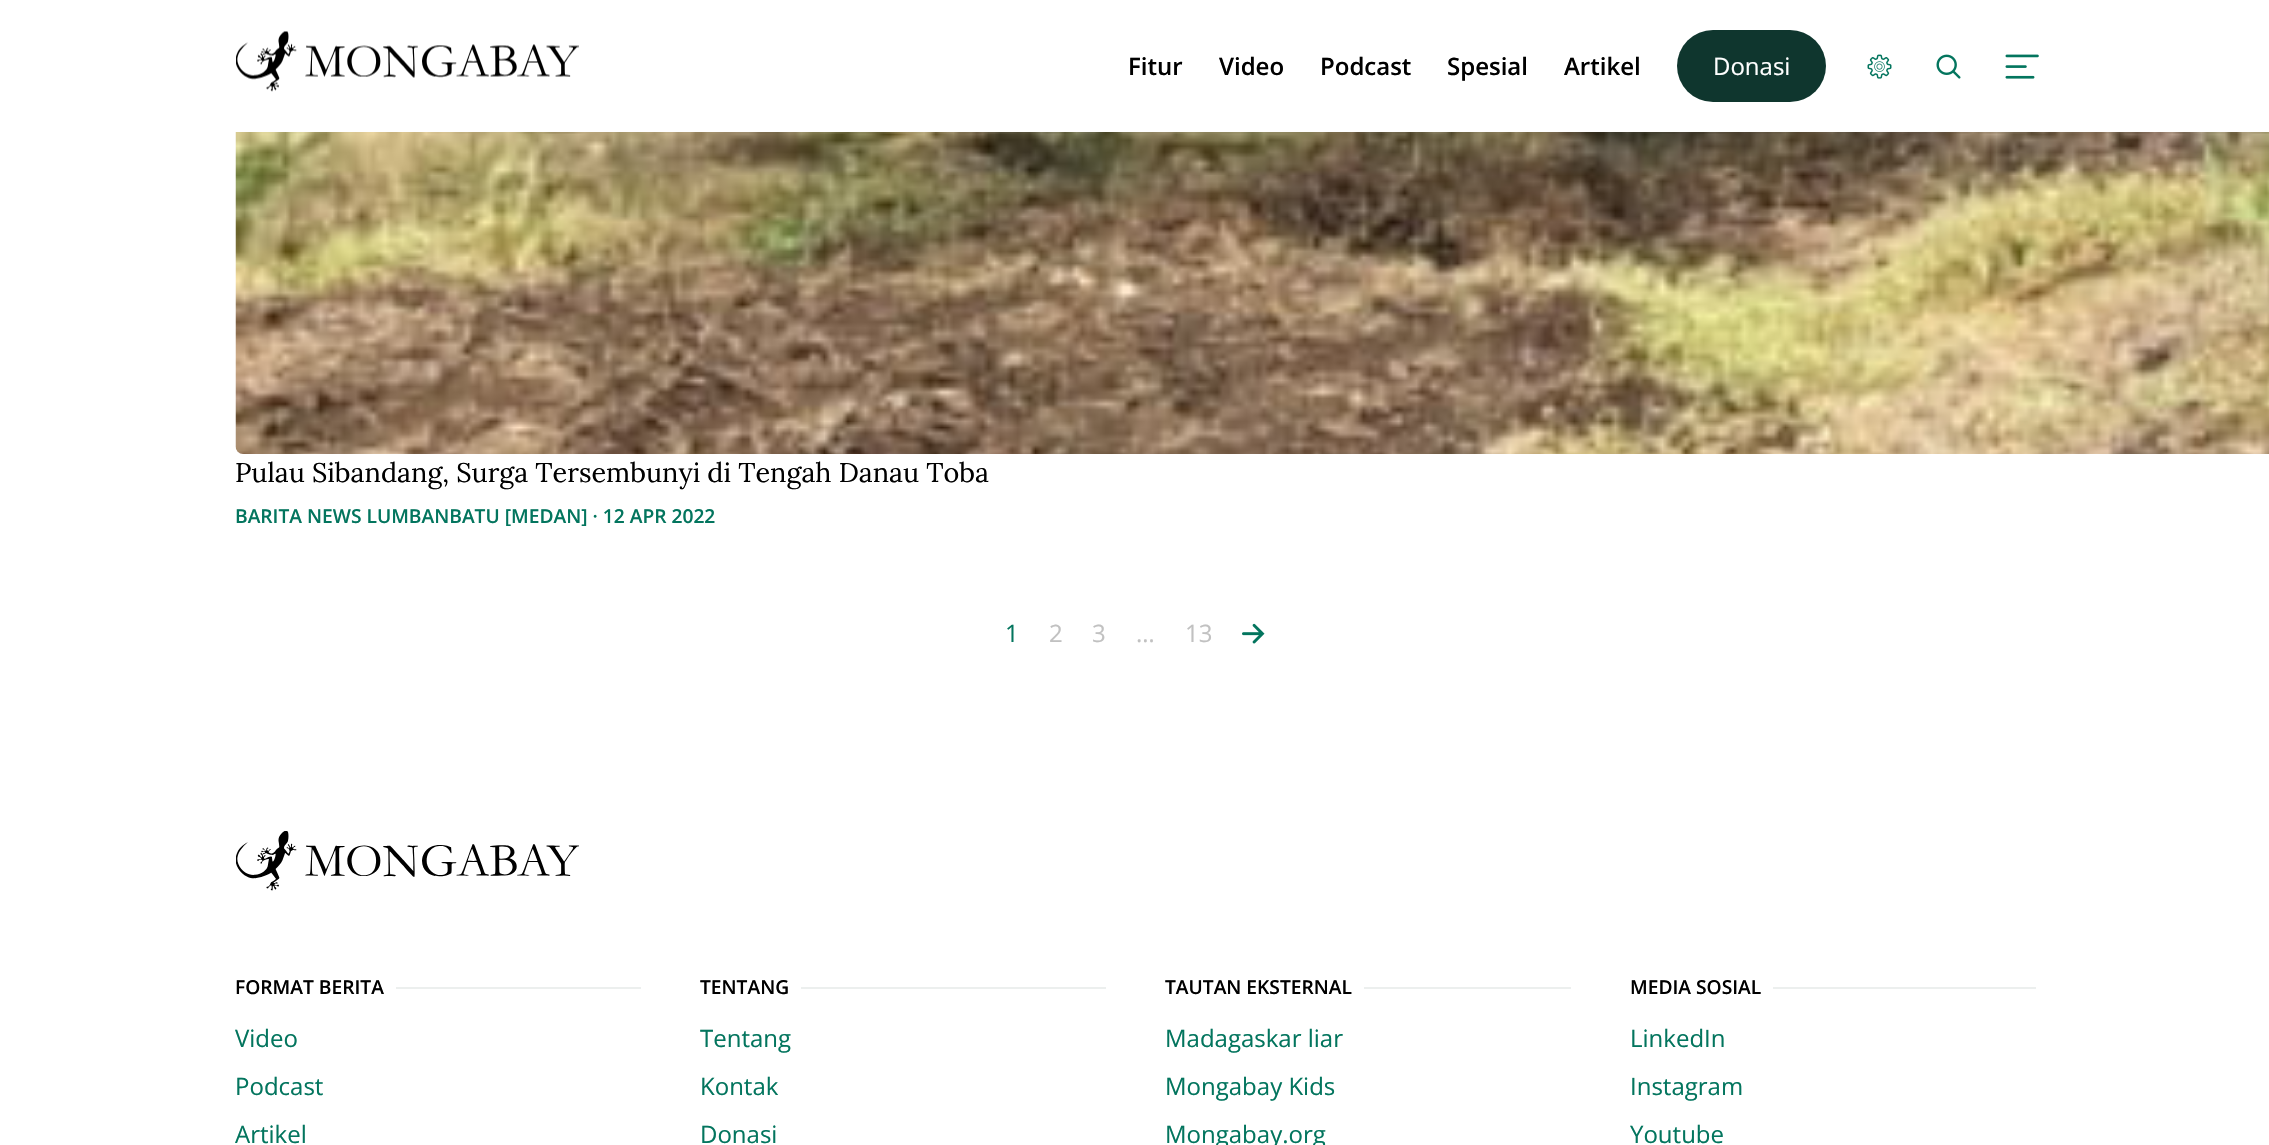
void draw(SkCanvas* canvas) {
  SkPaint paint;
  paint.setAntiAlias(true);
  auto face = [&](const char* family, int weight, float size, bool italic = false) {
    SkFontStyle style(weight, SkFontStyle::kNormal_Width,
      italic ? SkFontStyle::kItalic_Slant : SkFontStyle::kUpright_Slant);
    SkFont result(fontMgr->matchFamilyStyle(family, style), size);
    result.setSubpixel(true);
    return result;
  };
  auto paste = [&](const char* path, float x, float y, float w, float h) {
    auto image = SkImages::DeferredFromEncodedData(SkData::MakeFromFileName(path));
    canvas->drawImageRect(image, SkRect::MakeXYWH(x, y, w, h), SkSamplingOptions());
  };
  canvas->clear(0xffffffff);
  paste("img/1.png", 236, 31, 343, 61);
  paint.setColor(0xff0f362e);
  canvas->drawRoundRect(SkRect::MakeXYWH(1677, 30, 149, 72), 36, 36, paint);
  paste("img/2.png", 1867, 54, 25, 25);
  paste("img/3.png", 1936, 54, 25, 25);
  paste("img/4.png", 2005, 54, 34, 25);
  paste("img/5.png", 235, 132, 2034, 322);
  paste("img/6.png", 1242, 623, 23, 21);
  paste("img/7.png", 236, 831, 343, 60);
  {
    const struct { float x, y, w, h; SkColor color; } items[] = {
      {396, 987, 245, 2, 0xffecefee},
      {801, 987, 305, 2, 0xffecefee},
      {1364, 987, 207, 2, 0xffecefee},
      {1773, 987, 263, 2, 0xffecefee},
    };
    for (auto [x, y, w, h, color] : items) {
      paint.setColor(color);
      canvas->drawRect(SkRect::MakeXYWH(x, y, w, h), paint);
    }
  }
  auto f0 = face("Open Sans", 600, 24);
  paint.setColor(0xff000000);
  {
    const struct { const char* s; float x, y; } items[] = {
      {"Fitur", 1128, 75},
      {"Video", 1219, 75},
      {"Podcast", 1320, 75},
      {"Spesial", 1447, 75},
      {"Artikel", 1564, 75},
    };
    for (auto [s, x, y] : items) {
      canvas->drawString(s, x, y, f0, paint);
    }
  }
  auto f1 = face("Open Sans", 400, 24);
  paint.setColor(0xffffffff);
  canvas->drawString("Donasi", 1713, 75, f1, paint);
  auto f2 = face("Lora", 400, 27);
  paint.setColor(0xff000000);
  canvas->drawString("Pulau Sibandang, Surga Tersembunyi di Tengah Danau Toba", 235, 482, f2, paint);
  auto f3 = face("Open Sans", 600, 19.2f);
  paint.setColor(0xff03755e);
  canvas->drawString("BARITA NEWS LUMBANBATU [MEDAN] · 12 APR 2022", 235, 523, f3, paint);
  canvas->drawString("1", 1005, 642, f1, paint);
  paint.setColor(0xffc1c1c1);
  {
    const struct { const char* s; float x, y; } items[] = {
      {"2", 1049, 642},
      {"3", 1092, 642},
      {"…", 1136, 642},
      {"13", 1185, 642},
    };
    for (auto [s, x, y] : items) {
      canvas->drawString(s, x, y, f1, paint);
    }
  }
  paint.setColor(0xff000000);
  canvas->drawString("FORMAT BERITA", 235, 994, f3, paint);
  paint.setColor(0xff03755e);
  {
    const struct { const char* s; float x, y; } items[] = {
      {"Video", 235, 1047},
      {"Podcast", 235, 1095},
      {"Artikel", 235, 1143},
    };
    for (auto [s, x, y] : items) {
      canvas->drawString(s, x, y, f1, paint);
    }
  }
  paint.setColor(0xff000000);
  canvas->drawString("TENTANG", 700, 994, f3, paint);
  paint.setColor(0xff03755e);
  {
    const struct { const char* s; float x, y; } items[] = {
      {"Tentang", 700, 1047},
      {"Kontak", 700, 1095},
      {"Donasi", 700, 1143},
    };
    for (auto [s, x, y] : items) {
      canvas->drawString(s, x, y, f1, paint);
    }
  }
  paint.setColor(0xff000000);
  canvas->drawString("TAUTAN EKSTERNAL", 1165, 994, f3, paint);
  paint.setColor(0xff03755e);
  {
    const struct { const char* s; float x, y; } items[] = {
      {"Madagaskar liar", 1165, 1047},
      {"Mongabay Kids", 1165, 1095},
      {"Mongabay.org", 1165, 1143},
    };
    for (auto [s, x, y] : items) {
      canvas->drawString(s, x, y, f1, paint);
    }
  }
  paint.setColor(0xff000000);
  canvas->drawString("MEDIA SOSIAL", 1630, 994, f3, paint);
  paint.setColor(0xff03755e);
  {
    const struct { const char* s; float x, y; } items[] = {
      {"LinkedIn", 1630, 1047},
      {"Instagram", 1630, 1095},
      {"Youtube", 1630, 1143},
    };
    for (auto [s, x, y] : items) {
      canvas->drawString(s, x, y, f1, paint);
    }
  }
}
